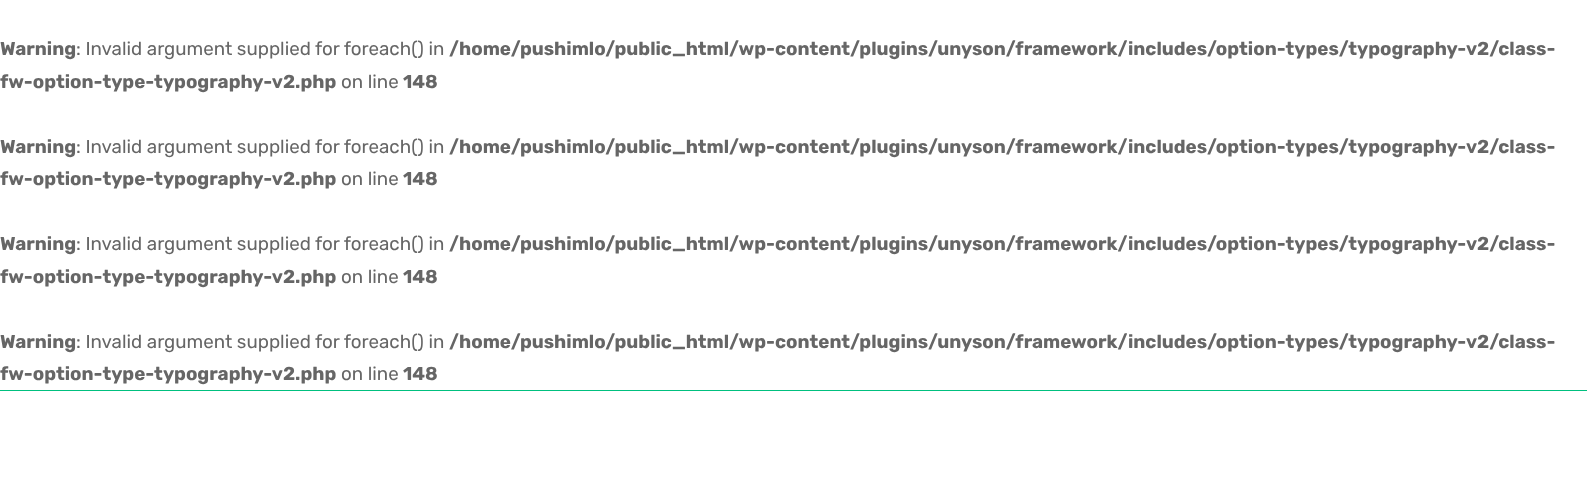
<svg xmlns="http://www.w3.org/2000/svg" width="1587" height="491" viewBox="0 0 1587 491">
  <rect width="100%" height="100%" fill="rgb(255,255,255)"/>
  <text x="0" y="55" font-family="Rubik" font-size="18.75" font-weight="bold" fill="rgb(102,102,102)">Warning</text>
  <text x="76" y="55" font-family="Rubik" font-size="18.75" fill="rgb(102,102,102)">: Invalid argument supplied for foreach() in</text>
  <g font-family="Rubik" font-size="18.75" font-weight="bold" fill="rgb(102,102,102)">
    <text x="449" y="55">/home/pushimlo/public_html/wp-content/plugins/unyson/framework/includes/option-types/typography-v2/class-</text>
    <text x="0" y="88">fw-option-type-typography-v2.php</text>
  </g>
  <text x="341" y="88" font-family="Rubik" font-size="18.75" fill="rgb(102,102,102)">on line</text>
  <g font-family="Rubik" font-size="18.75" font-weight="bold" fill="rgb(102,102,102)">
    <text x="403" y="88">148</text>
    <text x="0" y="153">Warning</text>
  </g>
  <text x="76" y="153" font-family="Rubik" font-size="18.75" fill="rgb(102,102,102)">: Invalid argument supplied for foreach() in</text>
  <g font-family="Rubik" font-size="18.75" font-weight="bold" fill="rgb(102,102,102)">
    <text x="449" y="153">/home/pushimlo/public_html/wp-content/plugins/unyson/framework/includes/option-types/typography-v2/class-</text>
    <text x="0" y="185">fw-option-type-typography-v2.php</text>
  </g>
  <text x="341" y="185" font-family="Rubik" font-size="18.75" fill="rgb(102,102,102)">on line</text>
  <g font-family="Rubik" font-size="18.75" font-weight="bold" fill="rgb(102,102,102)">
    <text x="403" y="185">148</text>
    <text x="0" y="250">Warning</text>
  </g>
  <text x="76" y="250" font-family="Rubik" font-size="18.75" fill="rgb(102,102,102)">: Invalid argument supplied for foreach() in</text>
  <g font-family="Rubik" font-size="18.75" font-weight="bold" fill="rgb(102,102,102)">
    <text x="449" y="250">/home/pushimlo/public_html/wp-content/plugins/unyson/framework/includes/option-types/typography-v2/class-</text>
    <text x="0" y="283">fw-option-type-typography-v2.php</text>
  </g>
  <text x="341" y="283" font-family="Rubik" font-size="18.75" fill="rgb(102,102,102)">on line</text>
  <g font-family="Rubik" font-size="18.75" font-weight="bold" fill="rgb(102,102,102)">
    <text x="403" y="283">148</text>
    <text x="0" y="348">Warning</text>
  </g>
  <text x="76" y="348" font-family="Rubik" font-size="18.75" fill="rgb(102,102,102)">: Invalid argument supplied for foreach() in</text>
  <g font-family="Rubik" font-size="18.75" font-weight="bold" fill="rgb(102,102,102)">
    <text x="449" y="348">/home/pushimlo/public_html/wp-content/plugins/unyson/framework/includes/option-types/typography-v2/class-</text>
    <text x="0" y="380">fw-option-type-typography-v2.php</text>
  </g>
  <text x="341" y="380" font-family="Rubik" font-size="18.75" fill="rgb(102,102,102)">on line</text>
  <text x="403" y="380" font-family="Rubik" font-size="18.75" font-weight="bold" fill="rgb(102,102,102)">148</text>
  <rect x="0" y="390" width="1587" height="1" fill="rgb(0,192,127)"/>
</svg>
